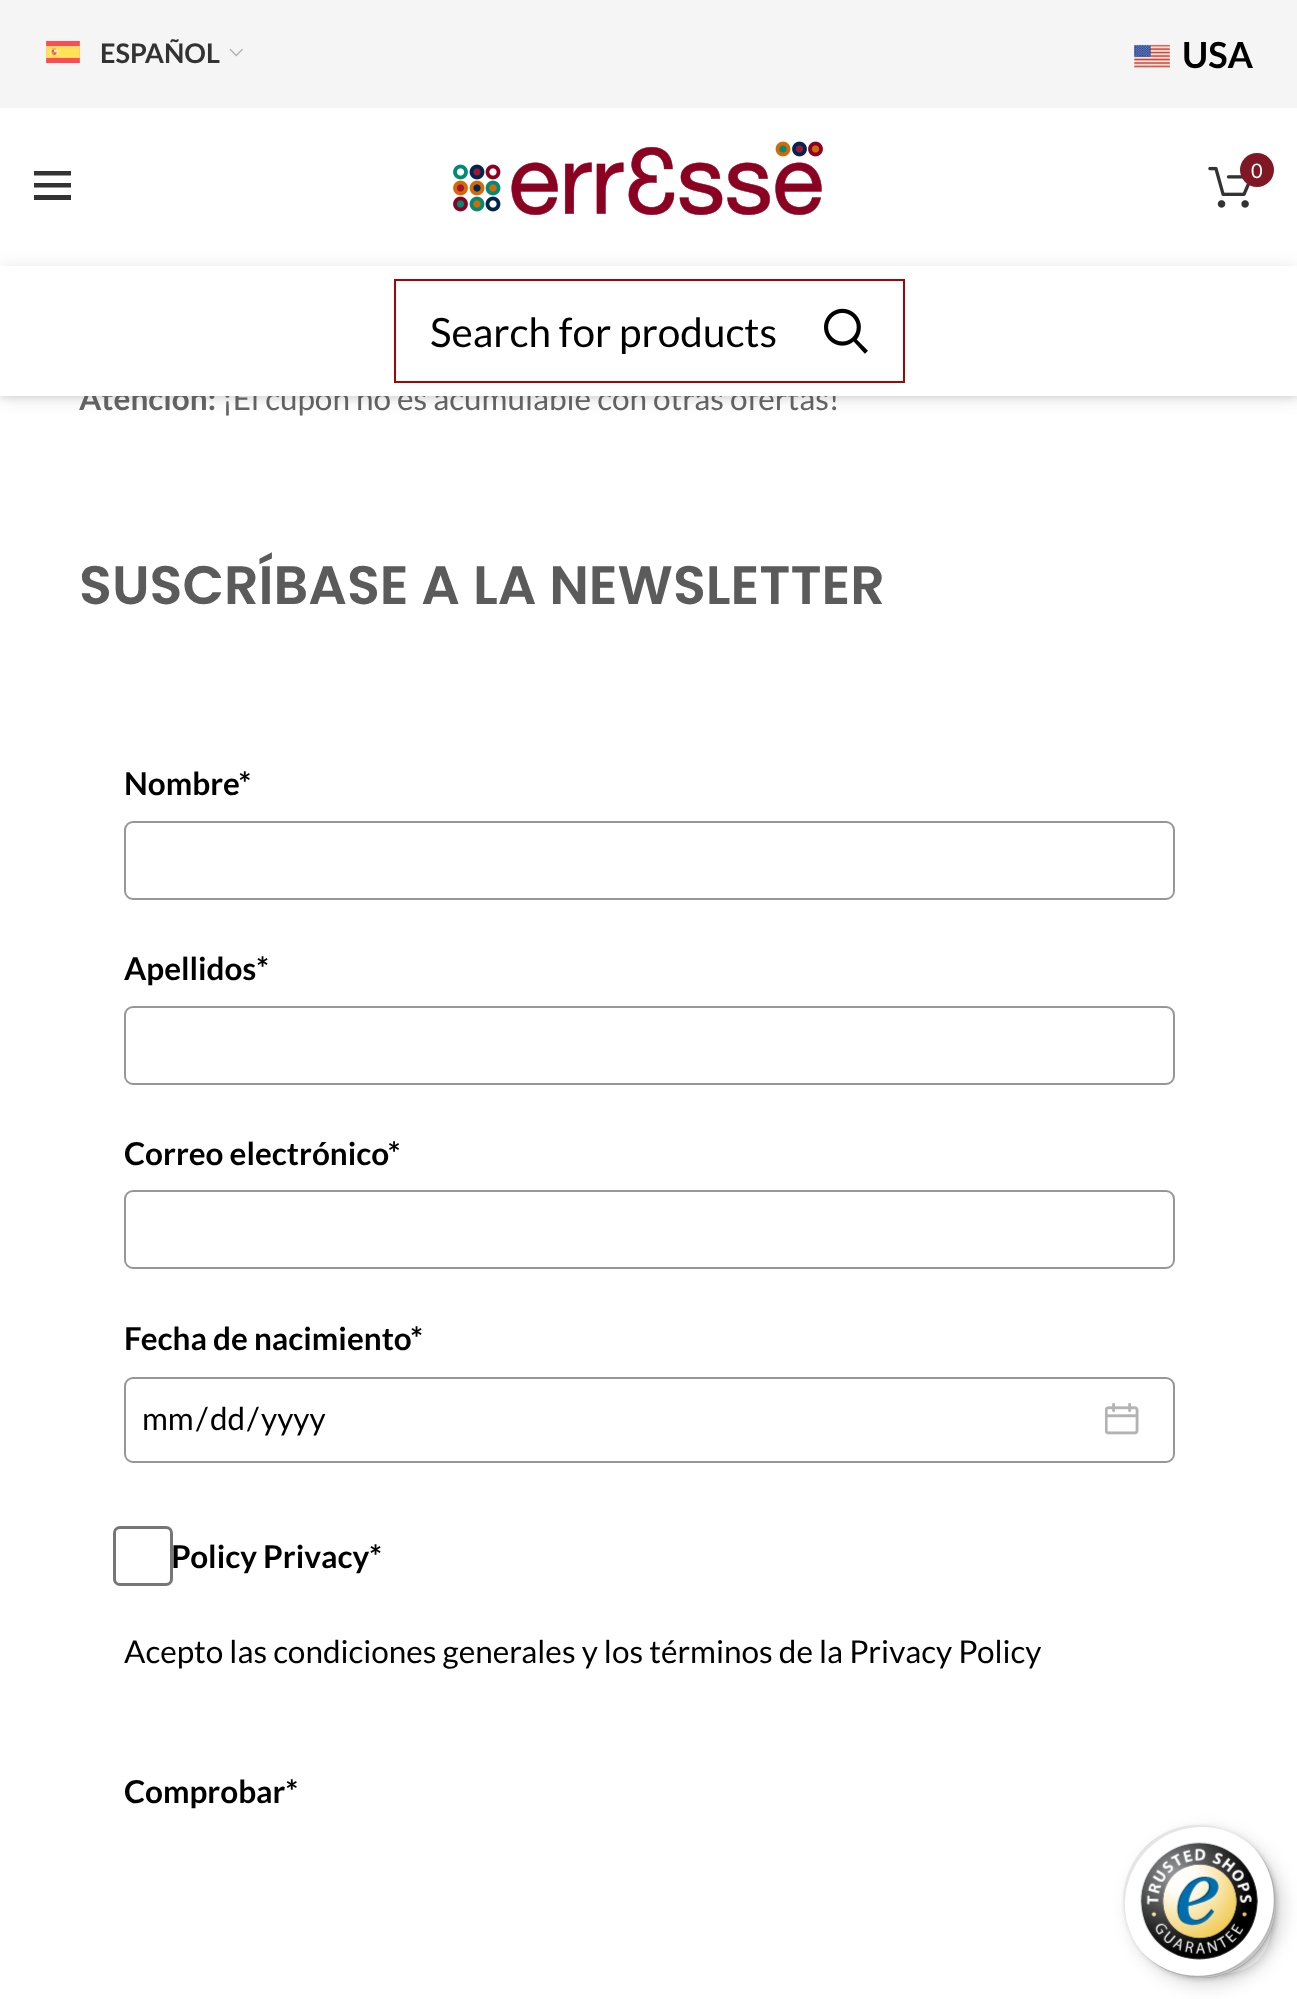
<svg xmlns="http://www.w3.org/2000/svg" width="1297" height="1999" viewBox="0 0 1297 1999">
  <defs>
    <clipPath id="clip1"><path d="M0 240H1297V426H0ZM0 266H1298V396H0Z" clip-rule="evenodd"/></clipPath>
    <clipPath id="clip2"><path d="M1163 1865H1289V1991H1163ZM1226 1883C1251 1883 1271 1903 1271 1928C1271 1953 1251 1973 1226 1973C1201 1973 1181 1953 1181 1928C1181 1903 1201 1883 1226 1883Z" clip-rule="evenodd"/></clipPath>
  </defs>
  <rect width="100%" height="100%" fill="rgb(255,255,255)"/>
  <rect x="0" y="2" width="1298" height="396" fill="rgba(0,0,0,0.1)" filter="blur(3.5px)"/>
  <text x="79" y="410" font-family="Lato" font-size="31.5" font-weight="bold" fill="rgb(101,101,101)">Atención:</text>
  <text x="222" y="410" font-family="Lato" font-size="31.5" fill="rgb(101,101,101)">¡El cupón no es acumulable con otras ofertas!</text>
  <rect x="0" y="108" width="1297" height="288" fill="rgb(255,255,255)"/>
  <rect x="0" y="0" width="1297" height="108" fill="rgb(245,245,245)"/>
  <image x="46" y="41" width="34" height="22" href="pic1.png"/>
  <text x="100" y="63" font-family="Lato" font-size="27" font-weight="bold" fill="rgb(51,51,51)">ESPAÑOL</text>
  <image x="229" y="48" width="14" height="9" href="pic2.png"/>
  <image x="1134" y="44" width="36" height="24" href="pic3.png"/>
  <text x="1182" y="68" font-family="Lato" font-size="36" font-weight="bold" fill="rgb(0,0,0)">USA</text>
  <path d="M34 171H71V175.5H34ZM34 183H71V187.5H34ZM34 195H71V200H34Z" fill="rgb(51,51,51)"/>
  <image x="453" y="141" width="370" height="74" href="pic4.png"/>
  <image x="1208" y="166" width="42" height="42" href="pic5.png"/>
  <circle cx="1257" cy="170" r="17" fill="rgb(127,23,37)"/>
  <text x="1251" y="178" font-family="Lato" font-size="20" fill="rgb(255,255,255)">0</text>
  <g clip-path="url(#clip1)">
    <rect x="0" y="268" width="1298" height="130" fill="rgba(0,0,0,0.1)" filter="blur(9px)"/>
  </g>
  <rect x="395" y="280" width="509" height="102" fill="none" stroke="rgb(162,5,5)" stroke-width="2"/>
  <text x="430" y="347" font-family="Lato" font-size="40.5" fill="rgb(0,0,0)">Search for products</text>
  <image x="824" y="308" width="44" height="46" href="pic6.png"/>
  <text x="79" y="604" font-family="Poppins" font-size="54" font-weight="600" fill="rgb(91,91,91)">SUSCRÍBASE A LA NEWSLETTER</text>
  <text x="124" y="795" font-family="Lato" font-size="31.5" font-weight="bold" fill="rgb(0,0,0)">Nombre*</text>
  <rect x="125" y="822" width="1049" height="77" rx="8" fill="none" stroke="rgb(151,151,151)" stroke-width="2"/>
  <text x="124" y="980" font-family="Lato" font-size="31.5" font-weight="bold" fill="rgb(0,0,0)">Apellidos*</text>
  <rect x="125" y="1007" width="1049" height="77" rx="8" fill="none" stroke="rgb(151,151,151)" stroke-width="2"/>
  <text x="124" y="1165" font-family="Lato" font-size="31.5" font-weight="bold" fill="rgb(0,0,0)">Correo electrónico*</text>
  <rect x="125" y="1191" width="1049" height="77" rx="8" fill="none" stroke="rgb(151,151,151)" stroke-width="2"/>
  <text x="124" y="1350" font-family="Lato" font-size="31.5" font-weight="bold" fill="rgb(0,0,0)">Fecha de nacimiento*</text>
  <image x="1105" y="1403" width="34" height="32" href="pic7.png"/>
  <rect x="125" y="1378" width="1049" height="84" rx="8" fill="none" stroke="rgb(151,151,151)" stroke-width="2"/>
  <g font-family="Lato" font-size="31.5" fill="rgb(0,0,0)">
    <text x="142" y="1430">mm</text>
    <text x="196" y="1430">/</text>
    <text x="210" y="1430">dd</text>
    <text x="247" y="1430">/</text>
    <text x="261" y="1430">yyyy</text>
  </g>
  <rect x="114.5" y="1527.5" width="57" height="57" rx="5.5" fill="none" stroke="rgb(118,118,118)" stroke-width="3"/>
  <text x="171" y="1568" font-family="Lato" font-size="31.5" font-weight="bold" fill="rgb(0,0,0)">Policy Privacy*</text>
  <text x="124" y="1663" font-family="Lato" font-size="31.5" fill="rgb(0,0,0)">Acepto las condiciones generales y los términos de la Privacy Policy</text>
  <text x="124" y="1803" font-family="Lato" font-size="31.5" font-weight="bold" fill="rgb(0,0,0)">Comprobar*</text>
  <g clip-path="url(#clip2)">
    <rect x="1181" y="1883" width="90" height="90" rx="45" fill="rgba(0,0,0,0.17)" filter="blur(5.5px)"/>
  </g>
  <circle cx="1226" cy="1928" r="45" fill="rgba(255,255,255,0.9)"/>
  <rect x="1130" y="1832" width="153" height="153" rx="76.5" fill="rgba(0,0,0,0.15)" filter="blur(9px)"/>
  <rect x="1125" y="1827" width="153" height="153" rx="76.5" fill="rgba(0,0,0,0.15)" filter="blur(2px)"/>
  <circle cx="1199.5" cy="1901.5" r="76.5" fill="rgb(255,255,255)"/>
  <path d="M1202 1827C1221 1827 1238 1834 1252 1846C1222 1818 1175 1818 1145 1847C1116 1877 1116 1924 1144 1954C1101 1905 1136 1827 1202 1827Z" fill="rgba(0,0,0,0.1)"/>
  <path d="M1148 1958C1178 1985 1225 1985 1254 1956C1283 1927 1283 1880 1256 1850C1281 1880 1280 1925 1251 1953C1223 1982 1178 1983 1148 1958Z" fill="rgba(0,0,0,0.2)"/>
  <path d="M1142 1952C1171 1985 1222 1987 1254 1956C1285 1924 1283 1873 1250 1844C1281 1874 1282 1923 1252 1954C1221 1984 1172 1983 1142 1952Z" fill="rgba(50,50,50,0.2)"/>
  <path d="M1139 1949C1167 1984 1221 1988 1254 1956C1286 1923 1282 1869 1247 1841C1282 1870 1285 1922 1252 1954C1220 1987 1168 1984 1139 1949Z" fill="rgba(255,255,255,0.3)"/>
  <image x="1140" y="1842" width="118" height="118" href="pic8.png"/>
</svg>
